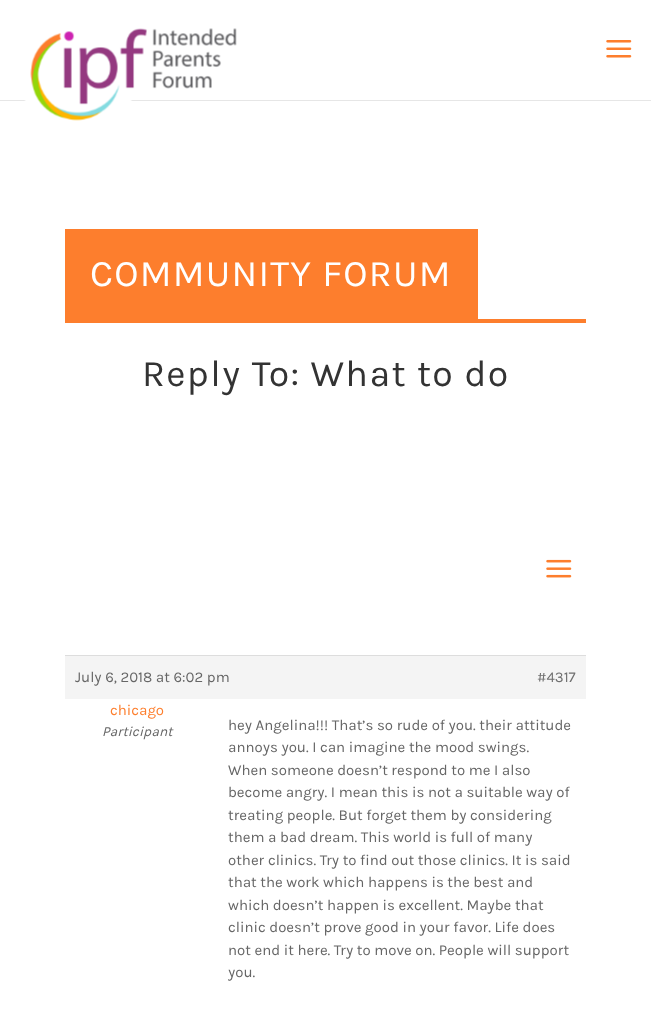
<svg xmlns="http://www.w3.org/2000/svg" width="651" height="1030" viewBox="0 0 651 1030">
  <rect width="100%" height="100%" fill="rgb(255,255,255)"/>
  <rect x="0" y="100" width="651" height="1" fill="rgb(230,230,230)"/>
  <image x="24" y="28" width="213" height="93" href="pic1.png"/>
  <image x="606" y="40" width="26" height="18" href="pic2.png"/>
  <rect x="65" y="319" width="521" height="4" fill="rgb(253,126,45)"/>
  <rect x="65" y="229" width="413" height="90" fill="rgb(253,126,45)"/>
  <text x="90" y="286" font-family="Karla" font-size="37.5" letter-spacing="1.25" fill="rgb(255,255,255)">COMMUNITY FORUM</text>
  <text x="142" y="386" font-family="Karla" font-size="37.5" letter-spacing="1.25" fill="rgb(51,51,51)">Reply To: What to do</text>
  <image x="546" y="559" width="26" height="19" href="pic3.png"/>
  <rect x="65" y="656" width="521" height="43" fill="rgb(244,244,244)"/>
  <rect x="65" y="655" width="521" height="1" fill="rgb(221,221,221)"/>
  <text x="75" y="682" font-family="Karla" font-size="15" fill="rgb(102,102,102)">July 6, 2018 at 6:02 pm</text>
  <text x="537" y="682" font-family="Karla" font-size="15" fill="rgb(112,112,112)">#4317</text>
  <text x="110" y="715" font-family="Karla" font-size="15" fill="rgb(253,126,45)">chicago</text>
  <text x="102" y="736" font-family="Karla" font-size="13.75" font-style="italic" fill="rgb(102,102,102)">Participant</text>
  <g font-family="Karla" font-size="15" fill="rgb(102,102,102)">
    <text>
      <tspan x="228" y="730">hey Angelina!!! That’s so rude of you. their attitude</tspan>
      <tspan x="228" y="752">annoys you. I can imagine the mood swings.</tspan>
      <tspan x="228" y="775">When someone doesn’t respond to me I also</tspan>
      <tspan x="228" y="797">become angry. I mean this is not a suitable way of</tspan>
      <tspan x="228" y="820">treating people. But forget them by considering</tspan>
      <tspan x="228" y="842">them a bad dream. This world is full of many</tspan>
      <tspan x="228" y="865">other clinics. Try to find out those clinics. It is said</tspan>
      <tspan x="228" y="887">that the work which happens is the best and</tspan>
      <tspan x="228" y="910">which doesn’t happen is excellent. Maybe that</tspan>
      <tspan x="228" y="932">clinic doesn’t prove good in your favor. Life does</tspan>
      <tspan x="228" y="955">not end it here. Try to move on. People will support</tspan>
      <tspan x="228" y="977">you.</tspan>
    </text>
  </g>
</svg>
